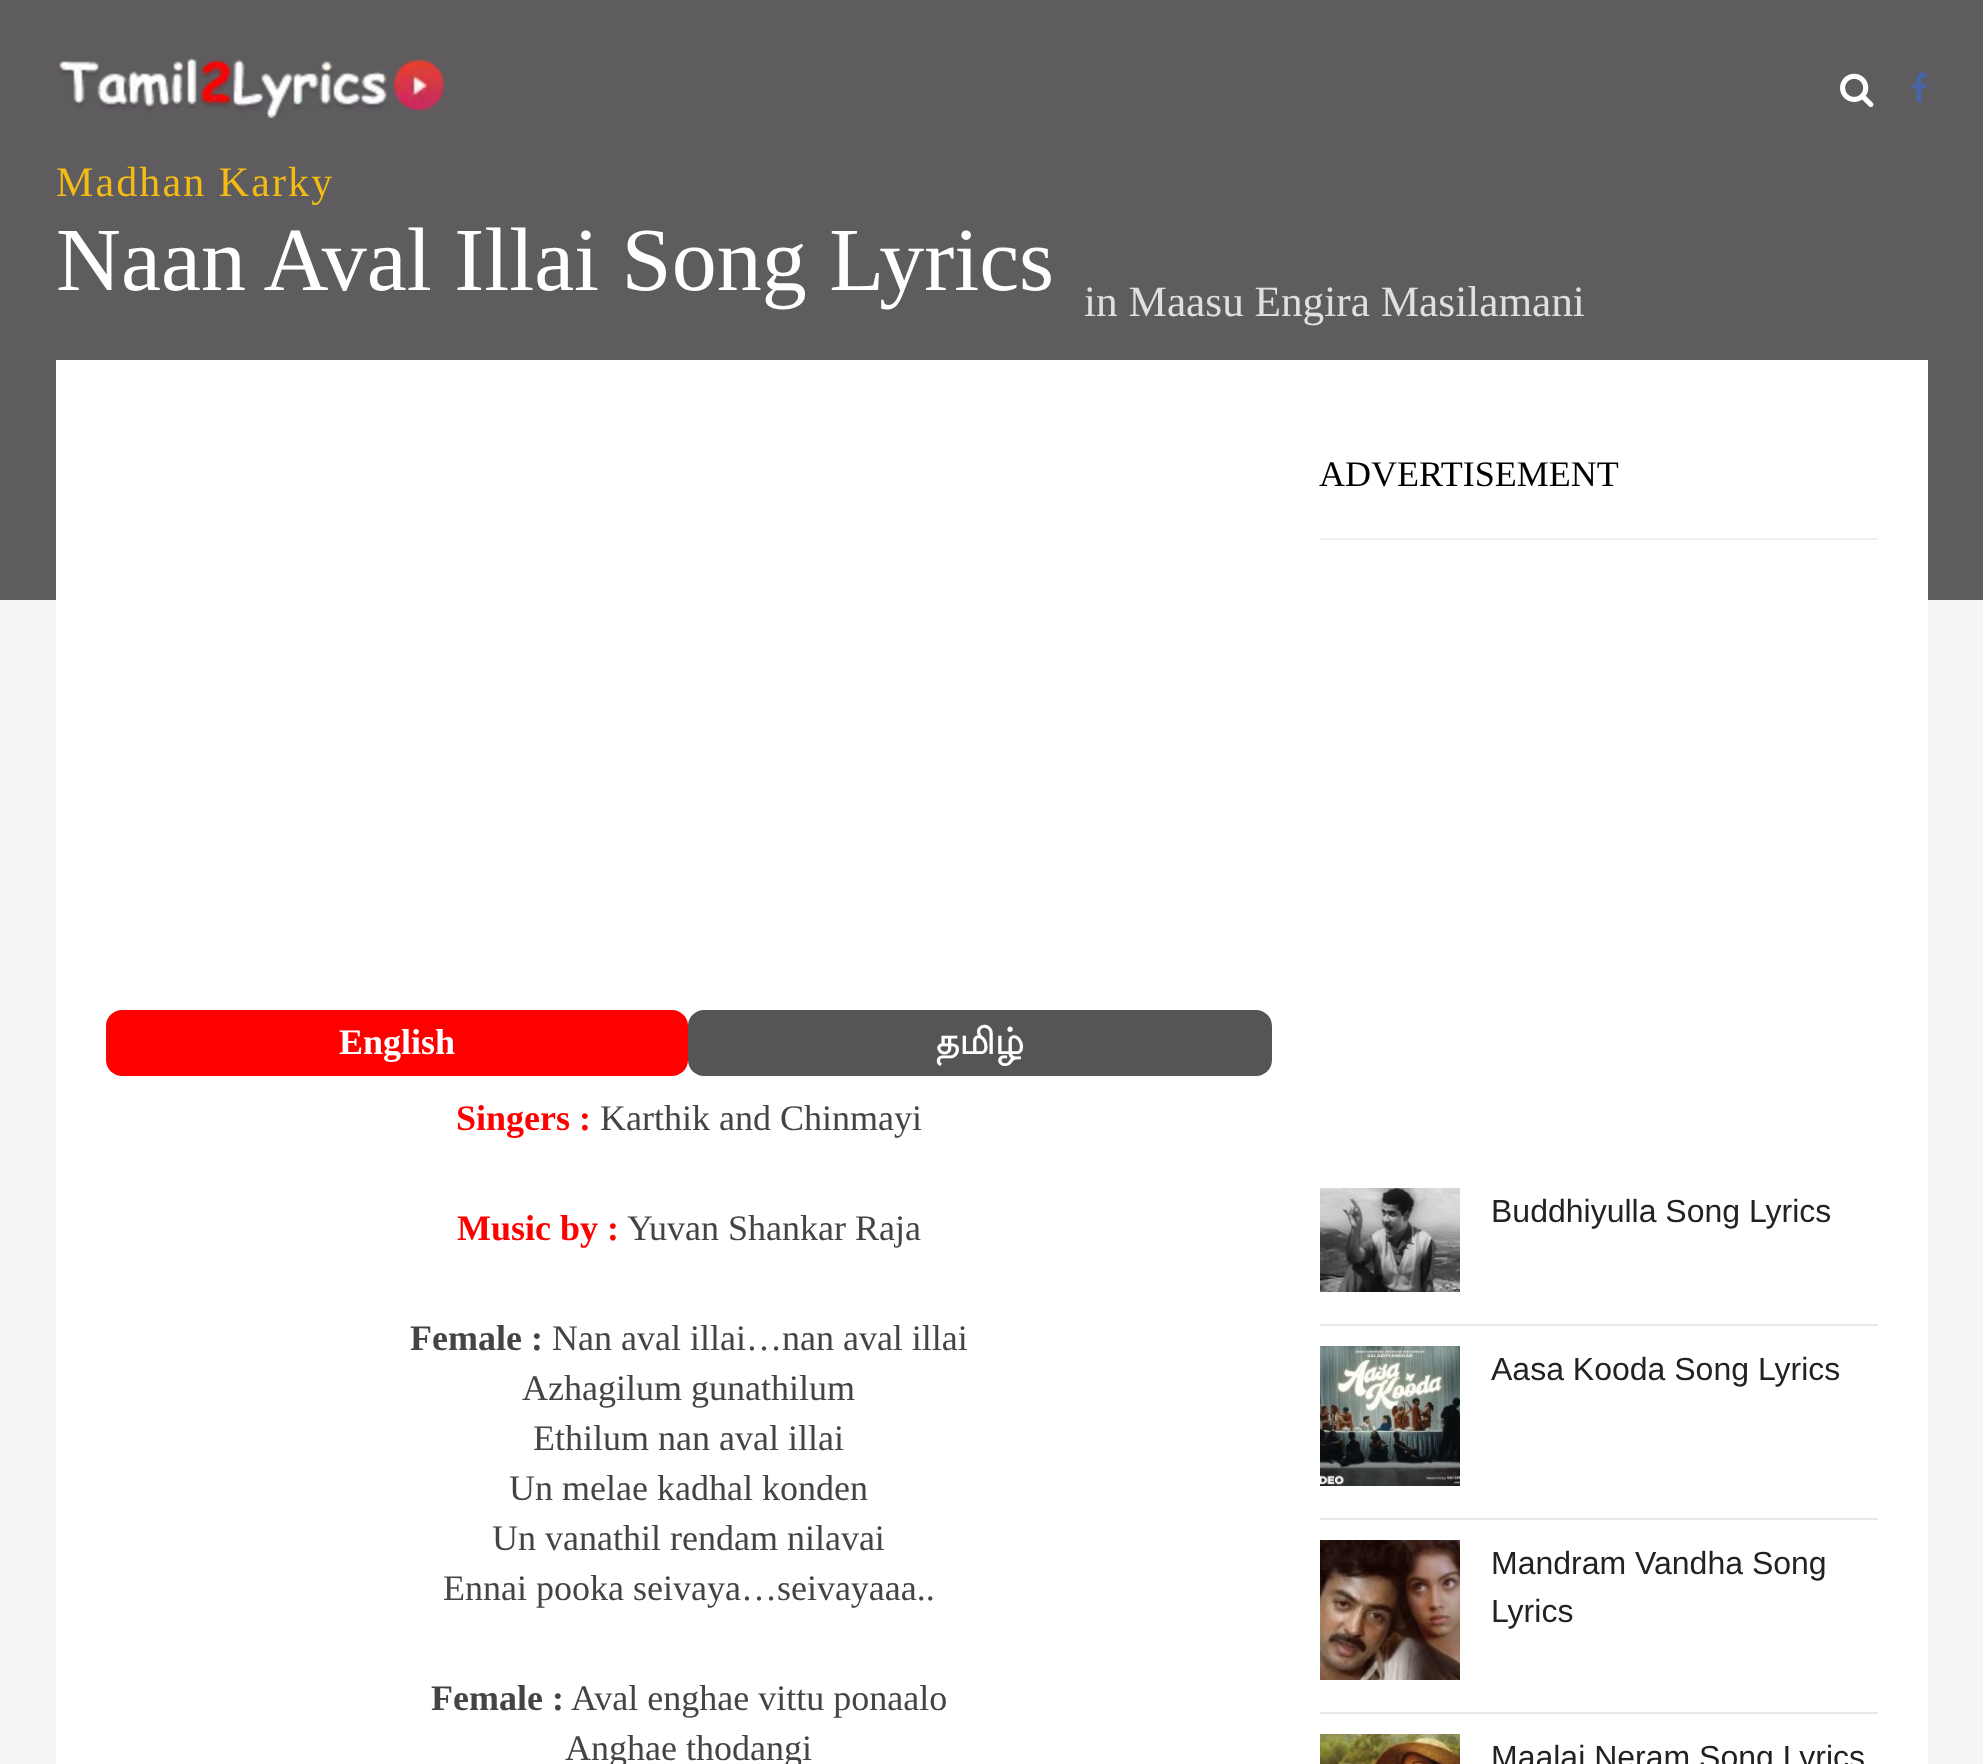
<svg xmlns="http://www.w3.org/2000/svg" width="1983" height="1764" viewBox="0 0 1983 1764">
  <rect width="100%" height="100%" fill="rgb(245,245,245)"/>
  <rect x="0" y="0" width="1983" height="600" fill="rgb(95,92,96)"/>
  <image x="59" y="57" width="386" height="61" href="pic1.png"/>
  <image x="1840" y="73" width="34" height="35" href="pic2.png"/>
  <image x="1911" y="72" width="17" height="31" href="pic3.png"/>
  <text x="56" y="196" font-family="Liberation Serif" font-size="42" letter-spacing="2.1" fill="rgb(243,187,20)">Madhan Karky</text>
  <text x="56" y="290" font-family="Liberation Serif" font-size="90" fill="rgb(255,255,255)">Naan Aval Illai Song Lyrics</text>
  <text x="1084" y="316" font-family="Liberation Serif" font-size="43.25" fill="rgb(224,224,224)">in Maasu Engira Masilamani</text>
  <rect x="56" y="360" width="1872" height="1404" fill="rgb(255,255,255)"/>
  <rect x="106" y="1010" width="582" height="66" rx="16" fill="rgb(255,0,0)"/>
  <text x="339" y="1054" font-family="Liberation Serif" font-size="36" font-weight="bold" fill="rgb(255,255,255)">English</text>
  <rect x="688" y="1010" width="584" height="66" rx="16" fill="rgb(85,85,85)"/>
  <text x="936" y="1054" font-family="Lohit Tamil" font-size="36" font-weight="bold" fill="rgb(255,255,255)">தமிழ்</text>
  <text x="456" y="1130" font-family="Liberation Serif" font-size="36" font-weight="bold" fill="rgb(255,0,0)">Singers :</text>
  <text x="600" y="1130" font-family="Liberation Serif" font-size="36" fill="rgb(68,68,68)">Karthik and Chinmayi</text>
  <text x="457" y="1240" font-family="Liberation Serif" font-size="36" font-weight="bold" fill="rgb(255,0,0)">Music by :</text>
  <text x="627" y="1240" font-family="Liberation Serif" font-size="36" fill="rgb(68,68,68)">Yuvan Shankar Raja</text>
  <text x="410" y="1350" font-family="Liberation Serif" font-size="36" font-weight="bold" fill="rgb(68,68,68)">Female :</text>
  <g font-family="Liberation Serif" font-size="36" fill="rgb(68,68,68)">
    <text x="552" y="1350">Nan aval illai…nan aval illai</text>
    <text x="522" y="1400">Azhagilum gunathilum</text>
    <text x="533" y="1450">Ethilum nan aval illai</text>
    <text x="509" y="1500">Un melae kadhal konden</text>
    <text x="492" y="1550">Un vanathil rendam nilavai</text>
    <text x="443" y="1600">Ennai pooka seivaya…seivayaaa..</text>
  </g>
  <text x="431" y="1710" font-family="Liberation Serif" font-size="36" font-weight="bold" fill="rgb(68,68,68)">Female :</text>
  <g font-family="Liberation Serif" font-size="36" fill="rgb(68,68,68)">
    <text x="571" y="1710">Aval enghae vittu ponaalo</text>
    <text x="565" y="1760">Anghae thodangi</text>
  </g>
  <rect x="1320" y="538" width="558" height="2" fill="rgb(240,240,240)"/>
  <text x="1319" y="486" font-family="Liberation Serif" font-size="36" fill="rgb(0,0,0)">ADVERTISEMENT</text>
  <rect x="1320" y="1324" width="558" height="2" fill="rgb(232,232,232)"/>
  <image x="1320" y="1188" width="140" height="104" href="pic4.png"/>
  <text x="1491" y="1222" font-family="Liberation Sans" font-size="32" fill="rgb(34,34,34)">Buddhiyulla Song Lyrics</text>
  <rect x="1320" y="1518" width="558" height="2" fill="rgb(232,232,232)"/>
  <image x="1320" y="1346" width="140" height="140" href="pic5.png"/>
  <text x="1491" y="1380" font-family="Liberation Sans" font-size="32" fill="rgb(34,34,34)">Aasa Kooda Song Lyrics</text>
  <rect x="1320" y="1712" width="558" height="2" fill="rgb(232,232,232)"/>
  <image x="1320" y="1540" width="140" height="140" href="pic6.png"/>
  <g font-family="Liberation Sans" font-size="32" fill="rgb(34,34,34)">
    <text>
      <tspan x="1491" y="1574">Mandram Vandha Song</tspan>
      <tspan x="1491" y="1622">Lyrics</tspan>
    </text>
  </g>
  <image x="1320" y="1734" width="140" height="30" href="pic7.png"/>
  <text x="1491" y="1768" font-family="Liberation Sans" font-size="32" fill="rgb(34,34,34)">Maalai Neram Song Lyrics</text>
</svg>
